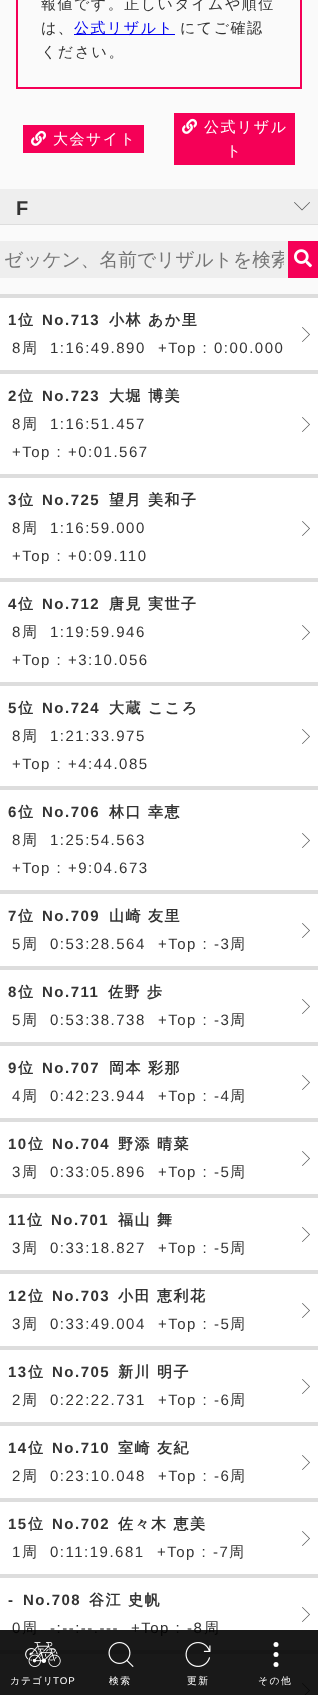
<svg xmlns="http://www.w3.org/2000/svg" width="318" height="1695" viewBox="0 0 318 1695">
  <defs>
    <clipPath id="clip1"><rect x="4" y="247" width="280" height="26"/></clipPath>
  </defs>
  <rect width="100%" height="100%" fill="rgb(250,250,250)"/>
  <rect x="17" y="-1" width="284" height="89" fill="none" stroke="rgb(245,0,87)" stroke-width="2"/>
  <g font-family="WenQuanYi Zen Hei" font-size="15" font-weight="500" letter-spacing="1.5" fill="rgb(51,51,51)">
    <text>
      <tspan x="41" y="9">報値です。正しいタイムや順位</tspan>
      <tspan x="41" y="33">は、</tspan>
    </text>
  </g>
  <rect x="74" y="34" width="101" height="1" fill="rgb(0,0,238)"/>
  <text x="74" y="33" font-family="WenQuanYi Zen Hei" font-size="15" font-weight="500" letter-spacing="1.5" fill="rgb(0,0,238)">公式リザルト</text>
  <g font-family="WenQuanYi Zen Hei" font-size="15" font-weight="500" letter-spacing="1.5" fill="rgb(51,51,51)">
    <text x="180" y="33">にてご確認</text>
    <text x="41" y="57">ください。</text>
  </g>
  <rect x="23" y="125" width="121" height="28" fill="rgb(245,0,87)"/>
  <image x="31" y="130" width="15" height="16" href="pic1.png"/>
  <text x="53" y="144" font-family="WenQuanYi Zen Hei" font-size="15" font-weight="500" letter-spacing="1.5" fill="rgb(255,255,255)">大会サイト</text>
  <rect x="174" y="113" width="121" height="52" fill="rgb(245,0,87)"/>
  <image x="182" y="118" width="15" height="16" href="pic1.png"/>
  <g font-family="WenQuanYi Zen Hei" font-size="15" font-weight="500" letter-spacing="1.5" fill="rgb(255,255,255)">
    <text x="204" y="132">公式リザル</text>
    <text x="226" y="156">ト</text>
  </g>
  <rect x="0" y="224" width="318" height="1" fill="rgb(221,221,221)"/>
  <rect x="0" y="189" width="318" height="35" fill="rgb(238,238,238)"/>
  <text x="16" y="215" font-family="Liberation Sans" font-size="20" font-weight="bold" letter-spacing="1.5" fill="rgb(51,51,51)">F</text>
  <image x="294" y="202" width="16" height="9" href="pic2.png"/>
  <rect x="0" y="241" width="288" height="37" fill="rgb(238,238,238)"/>
  <g clip-path="url(#clip1)">
    <text x="4" y="266" font-family="WenQuanYi Zen Hei" font-size="18.75" font-weight="500" fill="rgb(117,117,117)">ゼッケン、名前でリザルトを検索</text>
  </g>
  <rect x="288" y="241" width="30" height="37" fill="rgb(245,0,87)"/>
  <image x="294" y="249" width="18" height="19" href="pic3.png"/>
  <rect x="0" y="294" width="318" height="4" fill="rgb(221,221,221)"/>
  <rect x="0" y="298" width="318" height="72" fill="rgb(255,255,255)"/>
  <rect x="0" y="370" width="318" height="4" fill="rgb(221,221,221)"/>
  <text x="8" y="325" font-family="Liberation Sans" font-size="15" font-weight="bold" letter-spacing="1.5" fill="rgb(51,51,51)">1</text>
  <text x="18" y="325" font-family="WenQuanYi Zen Hei" font-size="15" font-weight="bold" letter-spacing="1.5" fill="rgb(51,51,51)">位</text>
  <text x="42" y="325" font-family="Liberation Sans" font-size="15" font-weight="bold" letter-spacing="1.5" fill="rgb(51,51,51)">No.713</text>
  <text x="109" y="325" font-family="WenQuanYi Zen Hei" font-size="15" font-weight="bold" letter-spacing="1.5" fill="rgb(51,51,51)">小林 あか里</text>
  <text x="12" y="353" font-family="Liberation Sans" font-size="15" letter-spacing="1.5" fill="rgb(51,51,51)">8</text>
  <text x="22" y="353" font-family="WenQuanYi Zen Hei" font-size="15" font-weight="500" letter-spacing="1.5" fill="rgb(51,51,51)">周</text>
  <g font-family="Liberation Sans" font-size="15" letter-spacing="1.5" fill="rgb(51,51,51)">
    <text x="50" y="353">1:16:49.890</text>
    <text x="158" y="353">+Top : 0:00.000</text>
  </g>
  <image x="302" y="327" width="8" height="15" href="pic4.png"/>
  <rect x="0" y="374" width="318" height="100" fill="rgb(255,255,255)"/>
  <rect x="0" y="474" width="318" height="4" fill="rgb(221,221,221)"/>
  <text x="8" y="401" font-family="Liberation Sans" font-size="15" font-weight="bold" letter-spacing="1.5" fill="rgb(51,51,51)">2</text>
  <text x="18" y="401" font-family="WenQuanYi Zen Hei" font-size="15" font-weight="bold" letter-spacing="1.5" fill="rgb(51,51,51)">位</text>
  <text x="42" y="401" font-family="Liberation Sans" font-size="15" font-weight="bold" letter-spacing="1.5" fill="rgb(51,51,51)">No.723</text>
  <text x="109" y="401" font-family="WenQuanYi Zen Hei" font-size="15" font-weight="bold" letter-spacing="1.5" fill="rgb(51,51,51)">大堀 博美</text>
  <text x="12" y="429" font-family="Liberation Sans" font-size="15" letter-spacing="1.5" fill="rgb(51,51,51)">8</text>
  <text x="22" y="429" font-family="WenQuanYi Zen Hei" font-size="15" font-weight="500" letter-spacing="1.5" fill="rgb(51,51,51)">周</text>
  <g font-family="Liberation Sans" font-size="15" letter-spacing="1.5" fill="rgb(51,51,51)">
    <text x="50" y="429">1:16:51.457</text>
    <text x="12" y="457">+Top : +0:01.567</text>
  </g>
  <image x="302" y="417" width="8" height="15" href="pic4.png"/>
  <rect x="0" y="478" width="318" height="100" fill="rgb(255,255,255)"/>
  <rect x="0" y="578" width="318" height="4" fill="rgb(221,221,221)"/>
  <text x="8" y="505" font-family="Liberation Sans" font-size="15" font-weight="bold" letter-spacing="1.5" fill="rgb(51,51,51)">3</text>
  <text x="18" y="505" font-family="WenQuanYi Zen Hei" font-size="15" font-weight="bold" letter-spacing="1.5" fill="rgb(51,51,51)">位</text>
  <text x="42" y="505" font-family="Liberation Sans" font-size="15" font-weight="bold" letter-spacing="1.5" fill="rgb(51,51,51)">No.725</text>
  <text x="109" y="505" font-family="WenQuanYi Zen Hei" font-size="15" font-weight="bold" letter-spacing="1.5" fill="rgb(51,51,51)">望月 美和子</text>
  <text x="12" y="533" font-family="Liberation Sans" font-size="15" letter-spacing="1.5" fill="rgb(51,51,51)">8</text>
  <text x="22" y="533" font-family="WenQuanYi Zen Hei" font-size="15" font-weight="500" letter-spacing="1.5" fill="rgb(51,51,51)">周</text>
  <g font-family="Liberation Sans" font-size="15" letter-spacing="1.5" fill="rgb(51,51,51)">
    <text x="50" y="533">1:16:59.000</text>
    <text x="12" y="561">+Top : +0:09.110</text>
  </g>
  <image x="302" y="521" width="8" height="15" href="pic4.png"/>
  <rect x="0" y="582" width="318" height="100" fill="rgb(255,255,255)"/>
  <rect x="0" y="682" width="318" height="4" fill="rgb(221,221,221)"/>
  <text x="8" y="609" font-family="Liberation Sans" font-size="15" font-weight="bold" letter-spacing="1.5" fill="rgb(51,51,51)">4</text>
  <text x="18" y="609" font-family="WenQuanYi Zen Hei" font-size="15" font-weight="bold" letter-spacing="1.5" fill="rgb(51,51,51)">位</text>
  <text x="42" y="609" font-family="Liberation Sans" font-size="15" font-weight="bold" letter-spacing="1.5" fill="rgb(51,51,51)">No.712</text>
  <text x="109" y="609" font-family="WenQuanYi Zen Hei" font-size="15" font-weight="bold" letter-spacing="1.5" fill="rgb(51,51,51)">唐見 実世子</text>
  <text x="12" y="637" font-family="Liberation Sans" font-size="15" letter-spacing="1.5" fill="rgb(51,51,51)">8</text>
  <text x="22" y="637" font-family="WenQuanYi Zen Hei" font-size="15" font-weight="500" letter-spacing="1.5" fill="rgb(51,51,51)">周</text>
  <g font-family="Liberation Sans" font-size="15" letter-spacing="1.5" fill="rgb(51,51,51)">
    <text x="50" y="637">1:19:59.946</text>
    <text x="12" y="665">+Top : +3:10.056</text>
  </g>
  <image x="302" y="625" width="8" height="15" href="pic4.png"/>
  <rect x="0" y="686" width="318" height="100" fill="rgb(255,255,255)"/>
  <rect x="0" y="786" width="318" height="4" fill="rgb(221,221,221)"/>
  <text x="8" y="713" font-family="Liberation Sans" font-size="15" font-weight="bold" letter-spacing="1.5" fill="rgb(51,51,51)">5</text>
  <text x="18" y="713" font-family="WenQuanYi Zen Hei" font-size="15" font-weight="bold" letter-spacing="1.5" fill="rgb(51,51,51)">位</text>
  <text x="42" y="713" font-family="Liberation Sans" font-size="15" font-weight="bold" letter-spacing="1.5" fill="rgb(51,51,51)">No.724</text>
  <text x="109" y="713" font-family="WenQuanYi Zen Hei" font-size="15" font-weight="bold" letter-spacing="1.5" fill="rgb(51,51,51)">大蔵 こころ</text>
  <text x="12" y="741" font-family="Liberation Sans" font-size="15" letter-spacing="1.5" fill="rgb(51,51,51)">8</text>
  <text x="22" y="741" font-family="WenQuanYi Zen Hei" font-size="15" font-weight="500" letter-spacing="1.5" fill="rgb(51,51,51)">周</text>
  <g font-family="Liberation Sans" font-size="15" letter-spacing="1.5" fill="rgb(51,51,51)">
    <text x="50" y="741">1:21:33.975</text>
    <text x="12" y="769">+Top : +4:44.085</text>
  </g>
  <image x="302" y="729" width="8" height="15" href="pic4.png"/>
  <rect x="0" y="790" width="318" height="100" fill="rgb(255,255,255)"/>
  <rect x="0" y="890" width="318" height="4" fill="rgb(221,221,221)"/>
  <text x="8" y="817" font-family="Liberation Sans" font-size="15" font-weight="bold" letter-spacing="1.5" fill="rgb(51,51,51)">6</text>
  <text x="18" y="817" font-family="WenQuanYi Zen Hei" font-size="15" font-weight="bold" letter-spacing="1.5" fill="rgb(51,51,51)">位</text>
  <text x="42" y="817" font-family="Liberation Sans" font-size="15" font-weight="bold" letter-spacing="1.5" fill="rgb(51,51,51)">No.706</text>
  <text x="109" y="817" font-family="WenQuanYi Zen Hei" font-size="15" font-weight="bold" letter-spacing="1.5" fill="rgb(51,51,51)">林口 幸恵</text>
  <text x="12" y="845" font-family="Liberation Sans" font-size="15" letter-spacing="1.5" fill="rgb(51,51,51)">8</text>
  <text x="22" y="845" font-family="WenQuanYi Zen Hei" font-size="15" font-weight="500" letter-spacing="1.5" fill="rgb(51,51,51)">周</text>
  <g font-family="Liberation Sans" font-size="15" letter-spacing="1.5" fill="rgb(51,51,51)">
    <text x="50" y="845">1:25:54.563</text>
    <text x="12" y="873">+Top : +9:04.673</text>
  </g>
  <image x="302" y="833" width="8" height="15" href="pic4.png"/>
  <rect x="0" y="894" width="318" height="72" fill="rgb(255,255,255)"/>
  <rect x="0" y="966" width="318" height="4" fill="rgb(221,221,221)"/>
  <text x="8" y="921" font-family="Liberation Sans" font-size="15" font-weight="bold" letter-spacing="1.5" fill="rgb(51,51,51)">7</text>
  <text x="18" y="921" font-family="WenQuanYi Zen Hei" font-size="15" font-weight="bold" letter-spacing="1.5" fill="rgb(51,51,51)">位</text>
  <text x="42" y="921" font-family="Liberation Sans" font-size="15" font-weight="bold" letter-spacing="1.5" fill="rgb(51,51,51)">No.709</text>
  <text x="109" y="921" font-family="WenQuanYi Zen Hei" font-size="15" font-weight="bold" letter-spacing="1.5" fill="rgb(51,51,51)">山崎 友里</text>
  <text x="12" y="949" font-family="Liberation Sans" font-size="15" letter-spacing="1.5" fill="rgb(51,51,51)">5</text>
  <text x="22" y="949" font-family="WenQuanYi Zen Hei" font-size="15" font-weight="500" letter-spacing="1.5" fill="rgb(51,51,51)">周</text>
  <g font-family="Liberation Sans" font-size="15" letter-spacing="1.5" fill="rgb(51,51,51)">
    <text x="50" y="949">0:53:28.564</text>
    <text x="158" y="949">+Top : -3</text>
  </g>
  <text x="230" y="949" font-family="WenQuanYi Zen Hei" font-size="15" font-weight="500" letter-spacing="1.5" fill="rgb(51,51,51)">周</text>
  <image x="302" y="923" width="8" height="15" href="pic4.png"/>
  <rect x="0" y="970" width="318" height="72" fill="rgb(255,255,255)"/>
  <rect x="0" y="1042" width="318" height="4" fill="rgb(221,221,221)"/>
  <text x="8" y="997" font-family="Liberation Sans" font-size="15" font-weight="bold" letter-spacing="1.5" fill="rgb(51,51,51)">8</text>
  <text x="18" y="997" font-family="WenQuanYi Zen Hei" font-size="15" font-weight="bold" letter-spacing="1.5" fill="rgb(51,51,51)">位</text>
  <text x="42" y="997" font-family="Liberation Sans" font-size="15" font-weight="bold" letter-spacing="1.5" fill="rgb(51,51,51)">No.711</text>
  <text x="108" y="997" font-family="WenQuanYi Zen Hei" font-size="15" font-weight="bold" letter-spacing="1.5" fill="rgb(51,51,51)">佐野 歩</text>
  <text x="12" y="1025" font-family="Liberation Sans" font-size="15" letter-spacing="1.5" fill="rgb(51,51,51)">5</text>
  <text x="22" y="1025" font-family="WenQuanYi Zen Hei" font-size="15" font-weight="500" letter-spacing="1.5" fill="rgb(51,51,51)">周</text>
  <g font-family="Liberation Sans" font-size="15" letter-spacing="1.5" fill="rgb(51,51,51)">
    <text x="50" y="1025">0:53:38.738</text>
    <text x="158" y="1025">+Top : -3</text>
  </g>
  <text x="230" y="1025" font-family="WenQuanYi Zen Hei" font-size="15" font-weight="500" letter-spacing="1.5" fill="rgb(51,51,51)">周</text>
  <image x="302" y="999" width="8" height="15" href="pic4.png"/>
  <rect x="0" y="1046" width="318" height="72" fill="rgb(255,255,255)"/>
  <rect x="0" y="1118" width="318" height="4" fill="rgb(221,221,221)"/>
  <text x="8" y="1073" font-family="Liberation Sans" font-size="15" font-weight="bold" letter-spacing="1.5" fill="rgb(51,51,51)">9</text>
  <text x="18" y="1073" font-family="WenQuanYi Zen Hei" font-size="15" font-weight="bold" letter-spacing="1.5" fill="rgb(51,51,51)">位</text>
  <text x="42" y="1073" font-family="Liberation Sans" font-size="15" font-weight="bold" letter-spacing="1.5" fill="rgb(51,51,51)">No.707</text>
  <text x="109" y="1073" font-family="WenQuanYi Zen Hei" font-size="15" font-weight="bold" letter-spacing="1.5" fill="rgb(51,51,51)">岡本 彩那</text>
  <text x="12" y="1101" font-family="Liberation Sans" font-size="15" letter-spacing="1.5" fill="rgb(51,51,51)">4</text>
  <text x="22" y="1101" font-family="WenQuanYi Zen Hei" font-size="15" font-weight="500" letter-spacing="1.5" fill="rgb(51,51,51)">周</text>
  <g font-family="Liberation Sans" font-size="15" letter-spacing="1.5" fill="rgb(51,51,51)">
    <text x="50" y="1101">0:42:23.944</text>
    <text x="158" y="1101">+Top : -4</text>
  </g>
  <text x="230" y="1101" font-family="WenQuanYi Zen Hei" font-size="15" font-weight="500" letter-spacing="1.5" fill="rgb(51,51,51)">周</text>
  <image x="302" y="1075" width="8" height="15" href="pic4.png"/>
  <rect x="0" y="1122" width="318" height="72" fill="rgb(255,255,255)"/>
  <rect x="0" y="1194" width="318" height="4" fill="rgb(221,221,221)"/>
  <text x="8" y="1149" font-family="Liberation Sans" font-size="15" font-weight="bold" letter-spacing="1.5" fill="rgb(51,51,51)">10</text>
  <text x="28" y="1149" font-family="WenQuanYi Zen Hei" font-size="15" font-weight="bold" letter-spacing="1.5" fill="rgb(51,51,51)">位</text>
  <text x="52" y="1149" font-family="Liberation Sans" font-size="15" font-weight="bold" letter-spacing="1.5" fill="rgb(51,51,51)">No.704</text>
  <text x="118" y="1149" font-family="WenQuanYi Zen Hei" font-size="15" font-weight="bold" letter-spacing="1.5" fill="rgb(51,51,51)">野添 晴菜</text>
  <text x="12" y="1177" font-family="Liberation Sans" font-size="15" letter-spacing="1.5" fill="rgb(51,51,51)">3</text>
  <text x="22" y="1177" font-family="WenQuanYi Zen Hei" font-size="15" font-weight="500" letter-spacing="1.5" fill="rgb(51,51,51)">周</text>
  <g font-family="Liberation Sans" font-size="15" letter-spacing="1.5" fill="rgb(51,51,51)">
    <text x="50" y="1177">0:33:05.896</text>
    <text x="158" y="1177">+Top : -5</text>
  </g>
  <text x="230" y="1177" font-family="WenQuanYi Zen Hei" font-size="15" font-weight="500" letter-spacing="1.5" fill="rgb(51,51,51)">周</text>
  <image x="302" y="1151" width="8" height="15" href="pic4.png"/>
  <rect x="0" y="1198" width="318" height="72" fill="rgb(255,255,255)"/>
  <rect x="0" y="1270" width="318" height="4" fill="rgb(221,221,221)"/>
  <text x="8" y="1225" font-family="Liberation Sans" font-size="15" font-weight="bold" letter-spacing="1.5" fill="rgb(51,51,51)">11</text>
  <text x="27" y="1225" font-family="WenQuanYi Zen Hei" font-size="15" font-weight="bold" letter-spacing="1.5" fill="rgb(51,51,51)">位</text>
  <text x="51" y="1225" font-family="Liberation Sans" font-size="15" font-weight="bold" letter-spacing="1.5" fill="rgb(51,51,51)">No.701</text>
  <text x="118" y="1225" font-family="WenQuanYi Zen Hei" font-size="15" font-weight="bold" letter-spacing="1.5" fill="rgb(51,51,51)">福山 舞</text>
  <text x="12" y="1253" font-family="Liberation Sans" font-size="15" letter-spacing="1.5" fill="rgb(51,51,51)">3</text>
  <text x="22" y="1253" font-family="WenQuanYi Zen Hei" font-size="15" font-weight="500" letter-spacing="1.5" fill="rgb(51,51,51)">周</text>
  <g font-family="Liberation Sans" font-size="15" letter-spacing="1.5" fill="rgb(51,51,51)">
    <text x="50" y="1253">0:33:18.827</text>
    <text x="158" y="1253">+Top : -5</text>
  </g>
  <text x="230" y="1253" font-family="WenQuanYi Zen Hei" font-size="15" font-weight="500" letter-spacing="1.5" fill="rgb(51,51,51)">周</text>
  <image x="302" y="1227" width="8" height="15" href="pic4.png"/>
  <rect x="0" y="1274" width="318" height="72" fill="rgb(255,255,255)"/>
  <rect x="0" y="1346" width="318" height="4" fill="rgb(221,221,221)"/>
  <text x="8" y="1301" font-family="Liberation Sans" font-size="15" font-weight="bold" letter-spacing="1.5" fill="rgb(51,51,51)">12</text>
  <text x="28" y="1301" font-family="WenQuanYi Zen Hei" font-size="15" font-weight="bold" letter-spacing="1.5" fill="rgb(51,51,51)">位</text>
  <text x="52" y="1301" font-family="Liberation Sans" font-size="15" font-weight="bold" letter-spacing="1.5" fill="rgb(51,51,51)">No.703</text>
  <text x="118" y="1301" font-family="WenQuanYi Zen Hei" font-size="15" font-weight="bold" letter-spacing="1.5" fill="rgb(51,51,51)">小田 恵利花</text>
  <text x="12" y="1329" font-family="Liberation Sans" font-size="15" letter-spacing="1.5" fill="rgb(51,51,51)">3</text>
  <text x="22" y="1329" font-family="WenQuanYi Zen Hei" font-size="15" font-weight="500" letter-spacing="1.5" fill="rgb(51,51,51)">周</text>
  <g font-family="Liberation Sans" font-size="15" letter-spacing="1.5" fill="rgb(51,51,51)">
    <text x="50" y="1329">0:33:49.004</text>
    <text x="158" y="1329">+Top : -5</text>
  </g>
  <text x="230" y="1329" font-family="WenQuanYi Zen Hei" font-size="15" font-weight="500" letter-spacing="1.5" fill="rgb(51,51,51)">周</text>
  <image x="302" y="1303" width="8" height="15" href="pic4.png"/>
  <rect x="0" y="1350" width="318" height="72" fill="rgb(255,255,255)"/>
  <rect x="0" y="1422" width="318" height="4" fill="rgb(221,221,221)"/>
  <text x="8" y="1377" font-family="Liberation Sans" font-size="15" font-weight="bold" letter-spacing="1.5" fill="rgb(51,51,51)">13</text>
  <text x="28" y="1377" font-family="WenQuanYi Zen Hei" font-size="15" font-weight="bold" letter-spacing="1.5" fill="rgb(51,51,51)">位</text>
  <text x="52" y="1377" font-family="Liberation Sans" font-size="15" font-weight="bold" letter-spacing="1.5" fill="rgb(51,51,51)">No.705</text>
  <text x="118" y="1377" font-family="WenQuanYi Zen Hei" font-size="15" font-weight="bold" letter-spacing="1.5" fill="rgb(51,51,51)">新川 明子</text>
  <text x="12" y="1405" font-family="Liberation Sans" font-size="15" letter-spacing="1.5" fill="rgb(51,51,51)">2</text>
  <text x="22" y="1405" font-family="WenQuanYi Zen Hei" font-size="15" font-weight="500" letter-spacing="1.5" fill="rgb(51,51,51)">周</text>
  <g font-family="Liberation Sans" font-size="15" letter-spacing="1.5" fill="rgb(51,51,51)">
    <text x="50" y="1405">0:22:22.731</text>
    <text x="158" y="1405">+Top : -6</text>
  </g>
  <text x="230" y="1405" font-family="WenQuanYi Zen Hei" font-size="15" font-weight="500" letter-spacing="1.5" fill="rgb(51,51,51)">周</text>
  <image x="302" y="1379" width="8" height="15" href="pic4.png"/>
  <rect x="0" y="1426" width="318" height="72" fill="rgb(255,255,255)"/>
  <rect x="0" y="1498" width="318" height="4" fill="rgb(221,221,221)"/>
  <text x="8" y="1453" font-family="Liberation Sans" font-size="15" font-weight="bold" letter-spacing="1.5" fill="rgb(51,51,51)">14</text>
  <text x="28" y="1453" font-family="WenQuanYi Zen Hei" font-size="15" font-weight="bold" letter-spacing="1.5" fill="rgb(51,51,51)">位</text>
  <text x="52" y="1453" font-family="Liberation Sans" font-size="15" font-weight="bold" letter-spacing="1.5" fill="rgb(51,51,51)">No.710</text>
  <text x="118" y="1453" font-family="WenQuanYi Zen Hei" font-size="15" font-weight="bold" letter-spacing="1.5" fill="rgb(51,51,51)">室崎 友紀</text>
  <text x="12" y="1481" font-family="Liberation Sans" font-size="15" letter-spacing="1.5" fill="rgb(51,51,51)">2</text>
  <text x="22" y="1481" font-family="WenQuanYi Zen Hei" font-size="15" font-weight="500" letter-spacing="1.5" fill="rgb(51,51,51)">周</text>
  <g font-family="Liberation Sans" font-size="15" letter-spacing="1.5" fill="rgb(51,51,51)">
    <text x="50" y="1481">0:23:10.048</text>
    <text x="158" y="1481">+Top : -6</text>
  </g>
  <text x="230" y="1481" font-family="WenQuanYi Zen Hei" font-size="15" font-weight="500" letter-spacing="1.5" fill="rgb(51,51,51)">周</text>
  <image x="302" y="1455" width="8" height="15" href="pic4.png"/>
  <rect x="0" y="1502" width="318" height="72" fill="rgb(255,255,255)"/>
  <rect x="0" y="1574" width="318" height="4" fill="rgb(221,221,221)"/>
  <text x="8" y="1529" font-family="Liberation Sans" font-size="15" font-weight="bold" letter-spacing="1.5" fill="rgb(51,51,51)">15</text>
  <text x="28" y="1529" font-family="WenQuanYi Zen Hei" font-size="15" font-weight="bold" letter-spacing="1.5" fill="rgb(51,51,51)">位</text>
  <text x="52" y="1529" font-family="Liberation Sans" font-size="15" font-weight="bold" letter-spacing="1.5" fill="rgb(51,51,51)">No.702</text>
  <text x="118" y="1529" font-family="WenQuanYi Zen Hei" font-size="15" font-weight="bold" letter-spacing="1.5" fill="rgb(51,51,51)">佐々木 恵美</text>
  <text x="12" y="1557" font-family="Liberation Sans" font-size="15" letter-spacing="1.5" fill="rgb(51,51,51)">1</text>
  <text x="22" y="1557" font-family="WenQuanYi Zen Hei" font-size="15" font-weight="500" letter-spacing="1.5" fill="rgb(51,51,51)">周</text>
  <g font-family="Liberation Sans" font-size="15" letter-spacing="1.5" fill="rgb(51,51,51)">
    <text x="50" y="1557">0:11:19.681</text>
    <text x="157" y="1557">+Top : -7</text>
  </g>
  <text x="229" y="1557" font-family="WenQuanYi Zen Hei" font-size="15" font-weight="500" letter-spacing="1.5" fill="rgb(51,51,51)">周</text>
  <image x="302" y="1531" width="8" height="15" href="pic4.png"/>
  <rect x="0" y="1578" width="318" height="72" fill="rgb(255,255,255)"/>
  <rect x="0" y="1650" width="318" height="4" fill="rgb(221,221,221)"/>
  <g font-family="Liberation Sans" font-size="15" font-weight="bold" letter-spacing="1.5" fill="rgb(51,51,51)">
    <text x="8" y="1605">-</text>
    <text x="23" y="1605">No.708</text>
  </g>
  <text x="89" y="1605" font-family="WenQuanYi Zen Hei" font-size="15" font-weight="bold" letter-spacing="1.5" fill="rgb(51,51,51)">谷江 史帆</text>
  <text x="12" y="1633" font-family="Liberation Sans" font-size="15" letter-spacing="1.5" fill="rgb(51,51,51)">0</text>
  <text x="22" y="1633" font-family="WenQuanYi Zen Hei" font-size="15" font-weight="500" letter-spacing="1.5" fill="rgb(51,51,51)">周</text>
  <g font-family="Liberation Sans" font-size="15" letter-spacing="1.5" fill="rgb(51,51,51)">
    <text x="50" y="1633">-:--:--.---</text>
    <text x="131" y="1633">+Top : -8</text>
  </g>
  <text x="204" y="1633" font-family="WenQuanYi Zen Hei" font-size="15" font-weight="500" letter-spacing="1.5" fill="rgb(51,51,51)">周</text>
  <image x="302" y="1607" width="8" height="15" href="pic4.png"/>
  <rect x="0" y="1654" width="318" height="41" fill="rgb(255,255,255)"/>
  <image x="302" y="1683" width="8" height="12" href="pic5.png"/>
  <rect x="0" y="1630" width="318" height="65" fill="rgba(0,0,0,0.9)"/>
  <image x="25" y="1642" width="36" height="25" href="pic6.png"/>
  <text x="10" y="1684" font-family="WenQuanYi Zen Hei" font-size="9.75" font-weight="500" letter-spacing="1" fill="rgb(255,255,255)">カテゴリ</text>
  <text x="53" y="1684" font-family="Liberation Sans" font-size="9.75" letter-spacing="1" fill="rgb(255,255,255)">TOP</text>
  <image x="108" y="1642" width="26" height="25" href="pic7.png"/>
  <text x="109" y="1684" font-family="WenQuanYi Zen Hei" font-size="9.75" font-weight="500" letter-spacing="1.5" fill="rgb(255,255,255)">検索</text>
  <image x="185" y="1642" width="26" height="25" href="pic8.png"/>
  <text x="187" y="1684" font-family="WenQuanYi Zen Hei" font-size="9.75" font-weight="500" letter-spacing="1.5" fill="rgb(255,255,255)">更新</text>
  <circle cx="276" cy="1644.5" r="2.5" fill="rgb(255,255,255)"/>
  <circle cx="276" cy="1654.5" r="2.5" fill="rgb(255,255,255)"/>
  <circle cx="276" cy="1664.5" r="2.5" fill="rgb(255,255,255)"/>
  <text x="258" y="1684" font-family="WenQuanYi Zen Hei" font-size="9.75" font-weight="500" letter-spacing="1.5" fill="rgb(255,255,255)">その他</text>
</svg>
